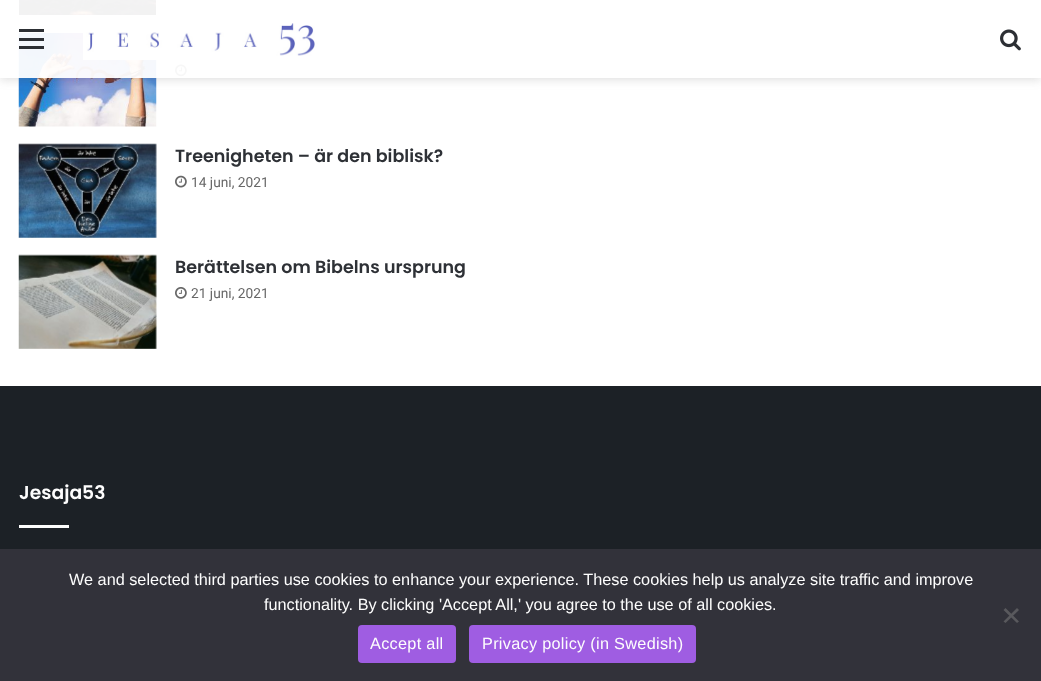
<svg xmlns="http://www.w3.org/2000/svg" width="1041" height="681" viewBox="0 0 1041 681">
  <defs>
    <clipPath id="clip1"><path d="M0 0H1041V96H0ZM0 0H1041V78H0Z" clip-rule="evenodd"/></clipPath>
  </defs>
  <rect width="100%" height="100%" fill="rgb(255,255,255)"/>
  <image x="19" y="0" width="137" height="15" href="pic3.png"/>
  <image x="18" y="32" width="139" height="95" href="pic4.png"/>
  <image x="175" y="64" width="12" height="13" href="pic5.png"/>
  <g clip-path="url(#clip1)">
    <rect x="0" y="3" width="1041" height="77" fill="rgba(99,99,99,0.2)" filter="blur(5px)"/>
  </g>
  <rect x="0" y="0" width="1041" height="78" fill="rgba(255,255,255,0.95)"/>
  <rect x="19" y="38" width="25" height="3" fill="rgb(44,47,52)"/>
  <rect x="19" y="29" width="25" height="3" fill="rgb(44,47,52)"/>
  <rect x="19" y="46" width="25" height="3" fill="rgb(44,47,52)"/>
  <image x="83" y="23" width="237" height="37" href="pic1.png"/>
  <image x="1000" y="29" width="21" height="22" href="pic2.png"/>
  <image x="18" y="143" width="139" height="95" href="pic6.png"/>
  <text x="175" y="162" font-family="Poppins" font-size="17.5" font-weight="600" fill="rgb(46,49,54)">Treenigheten – är den biblisk?</text>
  <image x="175" y="175" width="12" height="13" href="pic7.png"/>
  <text x="191" y="187" font-family="Roboto" font-size="13.75" fill="rgb(104,104,104)">14 juni, 2021</text>
  <image x="18" y="254" width="139" height="95" href="pic8.png"/>
  <text x="175" y="273" font-family="Poppins" font-size="17.5" font-weight="600" fill="rgb(46,49,54)">Berättelsen om Bibelns ursprung</text>
  <image x="175" y="287" width="12" height="12" href="pic9.png"/>
  <text x="191" y="298" font-family="Roboto" font-size="13.75" fill="rgb(104,104,104)">21 juni, 2021</text>
  <rect x="0" y="386" width="1041" height="163" fill="rgb(28,33,38)"/>
  <text x="19" y="499" font-family="Poppins" font-size="18.75" font-weight="600" fill="rgb(253,253,253)">Jesaja53</text>
  <rect x="19" y="525" width="50" height="3" fill="rgb(253,253,253)"/>
  <rect x="0" y="549" width="1041" height="132" fill="rgb(50,50,58)"/>
  <g font-family="Liberation Sans" font-size="16.25" fill="rgb(253,253,253)">
    <text x="69" y="585">We and selected third parties use cookies to enhance your experience. These cookies help us analyze site traffic and improve</text>
    <text x="264" y="610">functionality. By clicking 'Accept All,' you agree to the use of all cookies.</text>
  </g>
  <path d="M1017 608L1019 610L1005.5 623L1003.5 621.5Z" fill="rgb(89,89,93)"/>
  <path d="M1003.5 610L1005.5 608L1019 621.5L1017 623Z" fill="rgb(89,89,93)"/>
  <rect x="358" y="625" width="98" height="38" rx="4" fill="rgb(159,93,226)"/>
  <text x="370" y="649" font-family="Liberation Sans" font-size="16.25" letter-spacing="0.3" fill="rgb(253,253,253)">Accept all</text>
  <rect x="469" y="625" width="227" height="38" rx="4" fill="rgb(159,93,226)"/>
  <text x="482" y="649" font-family="Liberation Sans" font-size="16.25" letter-spacing="0.3" fill="rgb(253,253,253)">Privacy policy (in Swedish)</text>
</svg>
